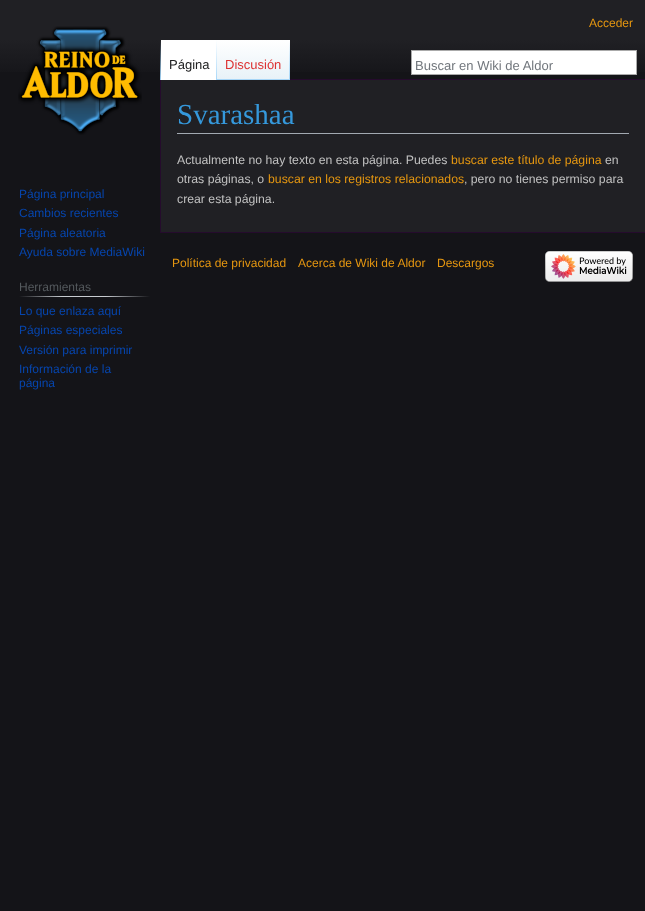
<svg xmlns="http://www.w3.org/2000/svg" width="645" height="911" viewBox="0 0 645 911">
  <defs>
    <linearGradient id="g1" gradientUnits="userSpaceOnUse" x1="323" y1="0" x2="323" y2="80"><stop offset="0.5" stop-color="rgb(32,32,36)"/><stop offset="1" stop-color="rgb(20,20,24)"/></linearGradient>
    <linearGradient id="g2" gradientUnits="userSpaceOnUse" x1="161" y1="40" x2="161" y2="80"><stop offset="0" stop-color="rgb(167,215,249)" stop-opacity="0"/><stop offset="1" stop-color="rgb(167,215,249)"/></linearGradient>
    <linearGradient id="g3" gradientUnits="userSpaceOnUse" x1="217" y1="40" x2="217" y2="80"><stop offset="0" stop-color="rgb(255,255,255)"/><stop offset="1" stop-color="rgb(167,215,249)"/></linearGradient>
    <linearGradient id="g4" gradientUnits="userSpaceOnUse" x1="254" y1="80" x2="254" y2="40"><stop offset="0" stop-color="rgb(119,193,246)"/><stop offset="0.03" stop-color="rgb(232,242,248)"/><stop offset="1" stop-color="rgb(255,255,255)"/></linearGradient>
    <linearGradient id="g5" gradientUnits="userSpaceOnUse" x1="290" y1="40" x2="290" y2="80"><stop offset="0" stop-color="rgb(167,215,249)" stop-opacity="0"/><stop offset="1" stop-color="rgb(167,215,249)"/></linearGradient>
    <linearGradient id="g6" gradientUnits="userSpaceOnUse" x1="19" y1="297" x2="150" y2="297"><stop offset="0" stop-color="rgb(20,20,24)"/><stop offset="0.33" stop-color="rgb(200,204,209)"/><stop offset="0.66" stop-color="rgb(200,204,209)"/><stop offset="1" stop-color="rgb(20,20,24)"/></linearGradient>
  </defs>
  <rect width="100%" height="100%" fill="rgb(20,20,24)"/>
  <rect x="0" y="0" width="645" height="72" fill="url(#g1)"/>
  <text x="589" y="27" font-family="Liberation Sans" font-size="12" fill="rgb(230,151,16)">Acceder</text>
  <rect x="160" y="232" width="485" height="1" fill="rgb(37,11,45)"/>
  <rect x="160" y="79" width="1" height="154" fill="rgb(37,11,45)"/>
  <rect x="160" y="40" width="1" height="40" fill="url(#g2)"/>
  <rect x="161" y="40" width="55" height="40" fill="rgb(255,255,255)"/>
  <rect x="216" y="40" width="1" height="40" fill="url(#g3)"/>
  <text x="169" y="69" font-family="Liberation Sans" font-size="13" fill="rgb(32,33,34)">Página</text>
  <rect x="217" y="40" width="73" height="40" fill="url(#g4)"/>
  <rect x="289" y="40" width="1" height="40" fill="url(#g5)"/>
  <text x="225" y="69" font-family="Liberation Sans" font-size="13" fill="rgb(221,51,51)">Discusión</text>
  <rect x="411.5" y="50.5" width="225" height="24" fill="rgb(255,255,255)" stroke="rgb(170,170,170)"/>
  <text x="415" y="70" font-family="Liberation Sans" font-size="13" fill="rgb(114,119,125)">Buscar en Wiki de Aldor</text>
  <image x="18" y="26" width="124" height="109" href="pic1.png"/>
  <g font-family="Liberation Sans" font-size="12" fill="rgb(6,69,173)">
    <text>
      <tspan x="19" y="198">Página principal</tspan>
      <tspan x="19" y="217">Cambios recientes</tspan>
      <tspan x="19" y="237">Página aleatoria</tspan>
      <tspan x="19" y="256">Ayuda sobre MediaWiki</tspan>
    </text>
  </g>
  <rect x="19" y="296" width="131" height="1" fill="url(#g6)"/>
  <text x="19" y="291" font-family="Liberation Sans" font-size="12" fill="rgb(84,89,93)">Herramientas</text>
  <g font-family="Liberation Sans" font-size="12" fill="rgb(6,69,173)">
    <text>
      <tspan x="19" y="315">Lo que enlaza aquí</tspan>
      <tspan x="19" y="334">Páginas especiales</tspan>
      <tspan x="19" y="354">Versión para imprimir</tspan>
      <tspan x="19" y="373">Información de la</tspan>
      <tspan x="19" y="387">página</tspan>
    </text>
  </g>
  <rect x="161" y="80" width="484" height="152" fill="rgb(32,32,36)"/>
  <rect x="290" y="79" width="355" height="1" fill="rgb(37,11,45)"/>
  <rect x="177" y="133" width="452" height="1" fill="rgb(162,169,177)"/>
  <text x="177" y="124" font-family="Liberation Serif" font-size="29" fill="rgb(53,152,219)">Svarashaa</text>
  <text x="177" y="164" font-family="Liberation Sans" font-size="12.25" fill="rgb(193,193,193)">Actualmente no hay texto en esta página. Puedes</text>
  <text x="451" y="164" font-family="Liberation Sans" font-size="12.25" fill="rgb(230,151,16)">buscar este título de página</text>
  <g font-family="Liberation Sans" font-size="12.25" fill="rgb(193,193,193)">
    <text x="605" y="164">en</text>
    <text x="177" y="183">otras páginas, o</text>
  </g>
  <text x="268" y="183" font-family="Liberation Sans" font-size="12.25" fill="rgb(230,151,16)">buscar en los registros relacionados</text>
  <g font-family="Liberation Sans" font-size="12.25" fill="rgb(193,193,193)">
    <text x="464" y="183">, pero no tienes permiso para</text>
    <text x="177" y="203">crear esta página.</text>
  </g>
  <g font-family="Liberation Sans" font-size="12" fill="rgb(230,151,16)">
    <text x="172" y="267">Política de privacidad</text>
    <text x="298" y="267">Acerca de Wiki de Aldor</text>
    <text x="437" y="267">Descargos</text>
  </g>
  <image x="545" y="251" width="88" height="31" href="pic2.png"/>
</svg>
